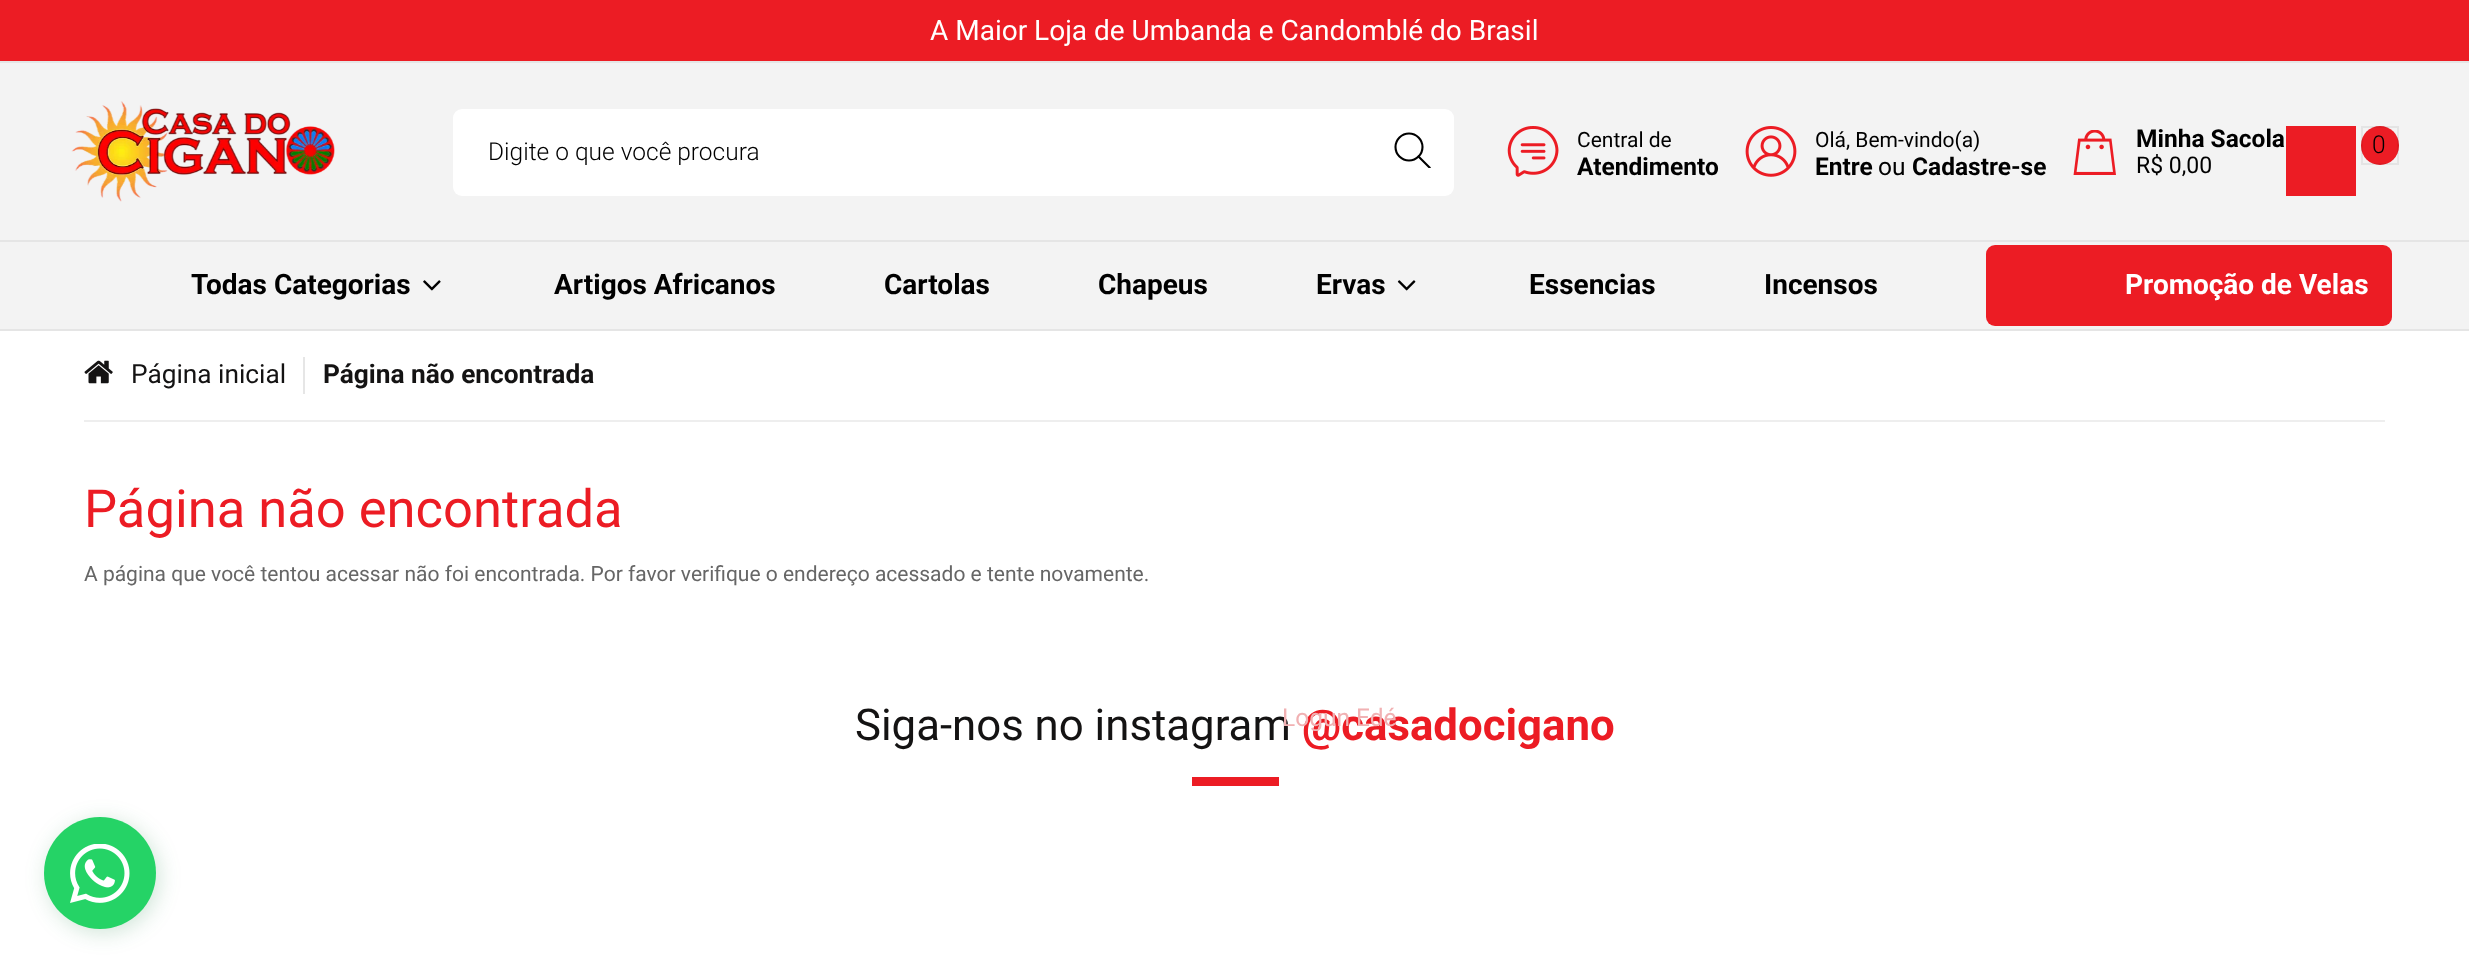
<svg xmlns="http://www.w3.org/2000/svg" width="2469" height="972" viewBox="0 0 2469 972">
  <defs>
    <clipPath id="clip1"><rect x="1393" y="131" width="39" height="37"/></clipPath>
  </defs>
  <rect width="100%" height="100%" fill="rgb(255,255,255)"/>
  <rect x="0" y="0" width="2469" height="61" fill="rgb(236,28,36)"/>
  <rect x="0" y="61" width="2469" height="2" fill="rgb(229,229,229)"/>
  <text x="930" y="40" font-family="Roboto" font-size="28" fill="rgb(255,255,255)">A Maior Loja de Umbanda e Candomblé do Brasil</text>
  <rect x="0" y="63" width="2469" height="177" fill="rgb(243,243,243)"/>
  <image x="71" y="101" width="264" height="101" href="pic1.png"/>
  <rect x="453" y="109" width="1001" height="87" rx="9" fill="rgb(255,255,255)"/>
  <text x="488" y="160" font-family="Roboto" font-size="24.5" font-weight="300" fill="rgb(0,0,0)">Digite o que você procura</text>
  <g clip-path="url(#clip1)">
    <path d="M1429.5 167.5L1418.5 156.5" fill="none" stroke="rgb(0,0,0)" stroke-width="2.1" stroke-linecap="square"/>
  </g>
  <circle cx="1409" cy="147" r="13.5" fill="none" stroke="rgb(0,0,0)" stroke-width="2.1"/>
  <image x="1507" y="126" width="52" height="51" href="pic2.png"/>
  <text x="1577" y="147" font-family="Roboto" font-size="21" fill="rgb(0,0,0)">Central de</text>
  <text x="1577" y="175" font-family="Roboto" font-size="24.5" font-weight="bold" fill="rgb(0,0,0)">Atendimento</text>
  <image x="1745" y="126" width="52" height="51" href="pic3.png"/>
  <text x="1815" y="147" font-family="Roboto" font-size="21" fill="rgb(0,0,0)">Olá, Bem-vindo(a)</text>
  <text x="1815" y="175" font-family="Roboto" font-size="24.5" font-weight="bold" fill="rgb(0,0,0)">Entre</text>
  <text x="1878" y="175" font-family="Roboto" font-size="24.5" fill="rgb(0,0,0)">ou</text>
  <text x="1912" y="175" font-family="Roboto" font-size="24.5" font-weight="bold" fill="rgb(0,0,0)">Cadastre-se</text>
  <image x="2073" y="130" width="43" height="45" href="pic4.png"/>
  <text x="2136" y="147" font-family="Roboto" font-size="24.5" font-weight="bold" fill="rgb(0,0,0)">Minha Sacola</text>
  <text x="2136" y="173" font-family="Roboto" font-size="23" fill="rgb(0,0,0)">R$ 0,00</text>
  <rect x="2286" y="126" width="70" height="70" fill="rgb(236,28,36)"/>
  <rect x="2361" y="126" width="38" height="39" rx="19" fill="rgb(236,28,36)"/>
  <rect x="2362" y="127" width="36" height="37" fill="none" stroke="rgba(0,0,0,0.06)" stroke-width="2"/>
  <text x="2372" y="153" font-family="Roboto" font-size="24.5" font-weight="300" fill="rgb(0,0,0)">0</text>
  <rect x="0" y="242" width="2469" height="87" fill="rgb(243,243,243)"/>
  <rect x="0" y="240" width="2469" height="2" fill="rgb(229,229,229)"/>
  <rect x="0" y="329" width="2469" height="2" fill="rgb(229,229,229)"/>
  <g font-family="Roboto" font-size="28" font-weight="bold" fill="rgb(0,0,0)">
    <text x="554" y="294">Artigos Africanos</text>
    <text x="191" y="294">Todas Categorias</text>
  </g>
  <image x="423" y="280" width="18" height="11" href="pic5.png"/>
  <text x="855" y="740" font-family="Roboto" font-size="43.75" fill="rgb(20,19,19)">Siga-nos no instagram</text>
  <text x="1302" y="740" font-family="Roboto" font-size="43.75" font-weight="bold" fill="rgb(236,28,36)">@casadocigano</text>
  <text x="1282" y="726" font-family="Roboto" font-size="24.5" fill="rgb(241,177,179)">Logun Edé</text>
  <g font-family="Roboto" font-size="28" font-weight="bold" fill="rgb(0,0,0)">
    <text x="884" y="294">Cartolas</text>
    <text x="1098" y="294">Chapeus</text>
    <text x="1316" y="294">Ervas</text>
  </g>
  <image x="1397" y="280" width="19" height="11" href="pic6.png"/>
  <g font-family="Roboto" font-size="28" font-weight="bold" fill="rgb(0,0,0)">
    <text x="1529" y="294">Essencias</text>
    <text x="1764" y="294">Incensos</text>
  </g>
  <rect x="1986" y="245" width="406" height="81" rx="9" fill="rgb(236,28,36)"/>
  <text x="2125" y="294" font-family="Roboto" font-size="28" font-weight="bold" fill="rgb(255,255,255)">Promoção de Velas</text>
  <rect x="84" y="420" width="2301" height="2" fill="rgb(238,238,238)"/>
  <image x="84" y="360" width="29" height="24" href="pic7.png"/>
  <text x="131" y="383" font-family="Roboto" font-size="26.25" fill="rgb(20,19,19)">Página inicial</text>
  <rect x="303" y="357" width="2" height="37" fill="rgb(230,230,230)"/>
  <text x="323" y="383" font-family="Roboto" font-size="26.25" font-weight="bold" fill="rgb(20,19,19)">Página não encontrada</text>
  <text x="84" y="527" font-family="Roboto" font-size="52.5" fill="rgb(236,28,36)">Página não encontrada</text>
  <text x="84" y="581" font-family="Roboto" font-size="21" fill="rgb(102,102,102)">A página que você tentou acessar não foi encontrada. Por favor verifique o endereço acessado e tente novamente.</text>
  <rect x="1192" y="777" width="87" height="9" fill="rgb(236,28,36)"/>
  <rect x="47" y="821" width="112" height="112" rx="56" fill="rgba(22,124,60,0.2)" filter="blur(10.5px)"/>
  <circle cx="100" cy="873" r="56" fill="rgb(37,211,102)"/>
  <image x="70" y="844" width="60" height="59" href="pic8.png"/>
</svg>
